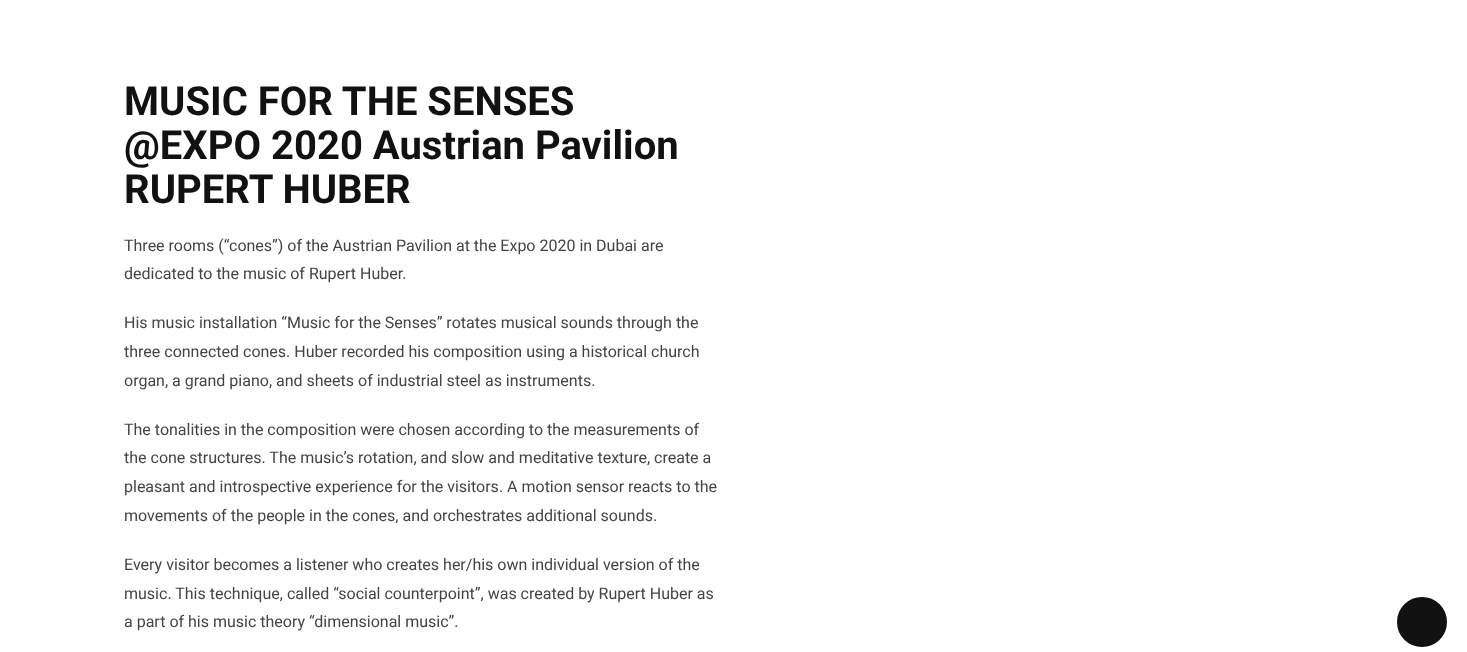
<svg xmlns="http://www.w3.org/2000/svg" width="1467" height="652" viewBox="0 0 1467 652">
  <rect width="100%" height="100%" fill="rgb(255,255,255)"/>
  <g font-family="Roboto" font-size="40" font-weight="bold" fill="rgb(17,17,17)">
    <text>
      <tspan x="124" y="115">MUSIC FOR THE SENSES</tspan>
      <tspan x="124" y="159">@EXPO 2020 Austrian Pavilion</tspan>
      <tspan x="124" y="203">RUPERT HUBER</tspan>
    </text>
  </g>
  <g font-family="Roboto" font-size="16" fill="rgb(68,68,68)">
    <text>
      <tspan x="124" y="251">Three rooms (“cones”) of the Austrian Pavilion at the Expo 2020 in Dubai are</tspan>
      <tspan x="124" y="279">dedicated to the music of Rupert Huber.</tspan>
    </text>
    <text>
      <tspan x="124" y="328">His music installation “Music for the Senses” rotates musical sounds through the</tspan>
      <tspan x="124" y="357">three connected cones. Huber recorded his composition using a historical church</tspan>
      <tspan x="124" y="386">organ, a grand piano, and sheets of industrial steel as instruments.</tspan>
    </text>
    <text>
      <tspan x="124" y="435">The tonalities in the composition were chosen according to the measurements of</tspan>
      <tspan x="124" y="463">the cone structures. The music’s rotation, and slow and meditative texture, create a</tspan>
      <tspan x="124" y="492">pleasant and introspective experience for the visitors. A motion sensor reacts to the</tspan>
      <tspan x="124" y="521">movements of the people in the cones, and orchestrates additional sounds.</tspan>
    </text>
    <text>
      <tspan x="124" y="570">Every visitor becomes a listener who creates her/his own individual version of the</tspan>
      <tspan x="124" y="599">music. This technique, called “social counterpoint”, was created by Rupert Huber as</tspan>
      <tspan x="124" y="627">a part of his music theory “dimensional music”.</tspan>
    </text>
  </g>
  <circle cx="1422" cy="622" r="24" fill="rgb(17,17,17)" stroke="rgb(17,17,17)" stroke-width="2"/>
</svg>
